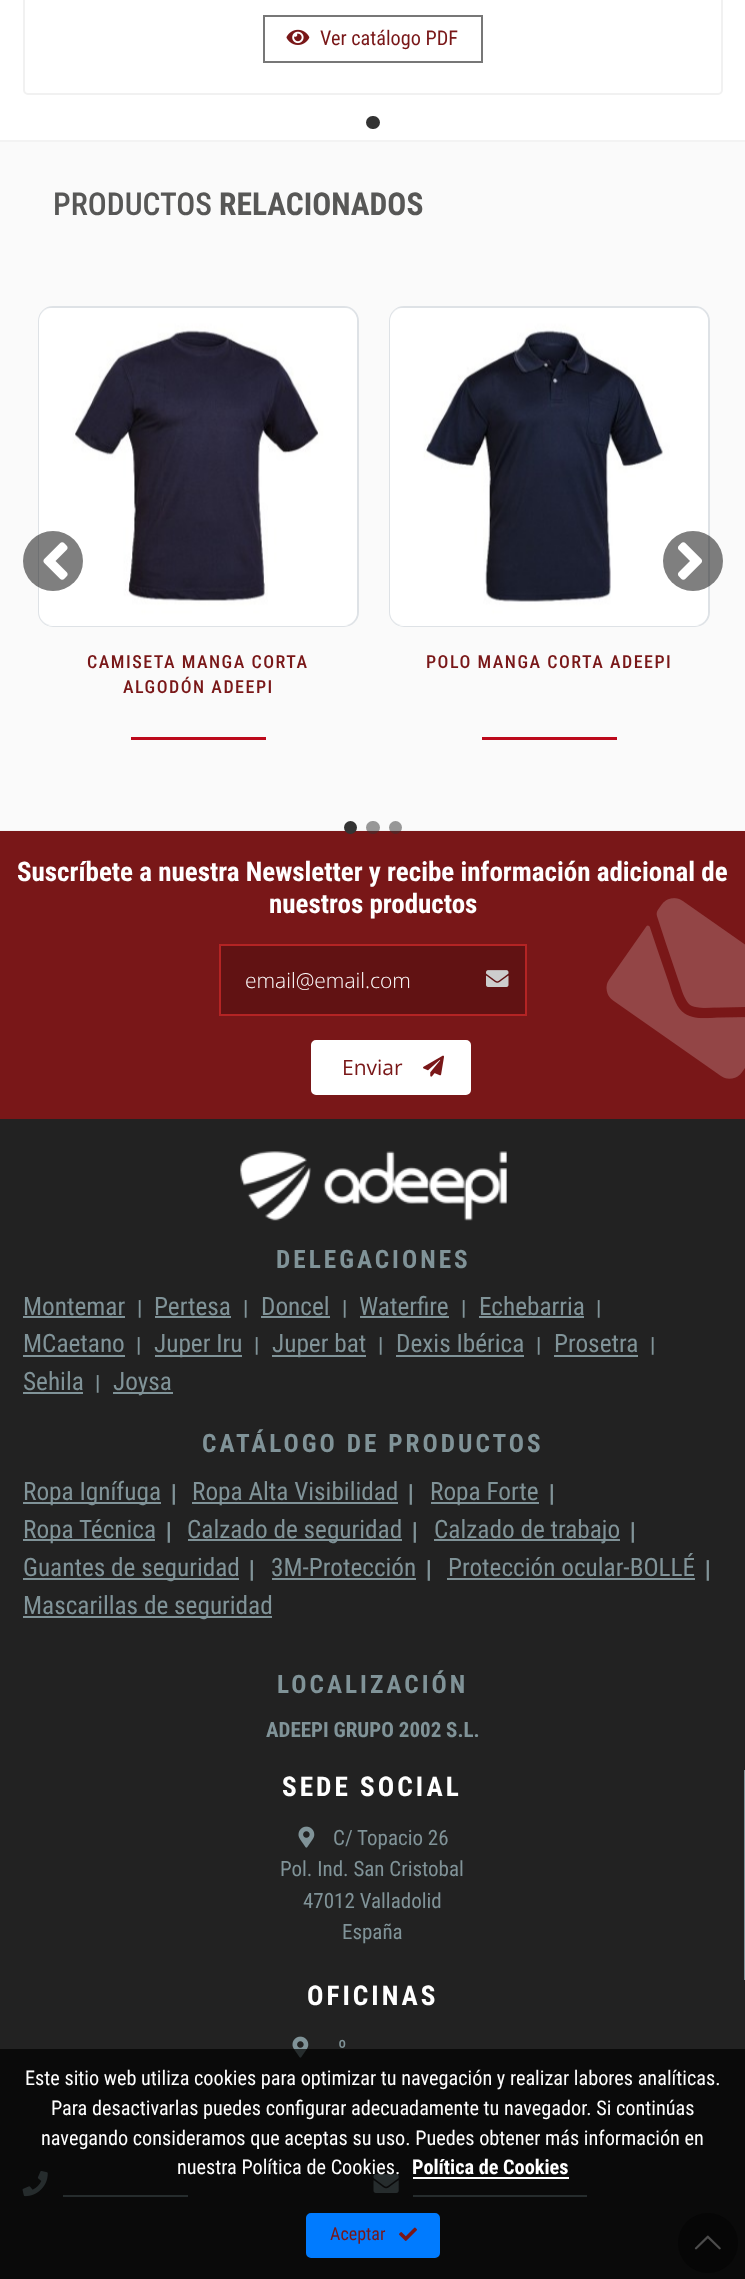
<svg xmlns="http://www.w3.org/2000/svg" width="745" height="2279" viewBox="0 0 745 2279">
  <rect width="100%" height="100%" fill="rgb(255,255,255)"/>
  <rect x="24" y="-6" width="698" height="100" rx="4" fill="none" stroke="rgb(241,241,241)" stroke-width="2"/>
  <rect x="264" y="16" width="218" height="46" fill="none" stroke="rgb(119,119,119)" stroke-width="2"/>
  <image x="286" y="29" width="24" height="16" href="pic1.png"/>
  <text x="320" y="45" font-family="Roboto Condensed" font-size="20.25" fill="rgb(121,23,24)">Ver catálogo PDF</text>
  <rect x="366" y="116" width="14" height="13" rx="6.5" fill="rgb(51,51,51)"/>
  <rect x="0" y="142" width="745" height="688" fill="rgb(250,250,250)"/>
  <rect x="0" y="140" width="745" height="2" fill="rgb(243,243,243)"/>
  <rect x="0" y="830" width="745" height="1" fill="rgb(243,243,243)"/>
  <text x="53" y="215" font-family="Roboto Condensed" font-size="31.5" font-weight="500" fill="rgb(87,87,86)">PRODUCTOS</text>
  <text x="219" y="215" font-family="Roboto Condensed" font-size="31.5" font-weight="bold" fill="rgb(87,87,86)">RELACIONADOS</text>
  <rect x="39" y="307" width="319" height="319" rx="14" fill="none" stroke="rgb(222,226,230)" stroke-width="2"/>
  <image x="39" y="308" width="318" height="318" href="pic4.png"/>
  <circle cx="53" cy="561" r="30" fill="rgba(0,0,0,0.5)"/>
  <image x="43" y="542" width="25" height="38" href="pic2.png"/>
  <rect x="390" y="307" width="319" height="319" rx="14" fill="none" stroke="rgb(222,226,230)" stroke-width="2"/>
  <image x="390" y="308" width="318" height="318" href="pic5.png"/>
  <circle cx="693" cy="561" r="30" fill="rgba(0,0,0,0.5)"/>
  <image x="678" y="542" width="24" height="38" href="pic3.png"/>
  <g font-family="Roboto Condensed" font-size="18" font-weight="500" letter-spacing="1.5" fill="rgb(121,23,24)">
    <text x="87" y="668">CAMISETA MANGA CORTA</text>
    <text x="123" y="693">ALGODÓN ADEEPI</text>
  </g>
  <rect x="131" y="737" width="135" height="3" fill="rgb(188,9,27)"/>
  <text x="426" y="668" font-family="Roboto Condensed" font-size="18" font-weight="500" letter-spacing="1.5" fill="rgb(121,23,24)">POLO MANGA CORTA ADEEPI</text>
  <rect x="482" y="737" width="135" height="3" fill="rgb(188,9,27)"/>
  <rect x="0" y="831" width="745" height="288" fill="rgb(121,23,24)"/>
  <circle cx="350.5" cy="827.5" r="6.5" fill="rgb(51,51,51)"/>
  <rect x="366" y="821" width="14" height="13" rx="6.5" fill="rgba(51,51,51,0.5)"/>
  <circle cx="395.5" cy="827.5" r="6.5" fill="rgba(51,51,51,0.5)"/>
  <g font-family="Roboto Condensed" font-size="27" font-weight="bold" fill="rgb(255,255,255)">
    <text x="17" y="881">Suscríbete a nuestra Newsletter y recibe información adicional de</text>
    <text x="269" y="913">nuestros productos</text>
  </g>
  <rect x="220" y="945" width="306" height="70" fill="rgb(97,18,19)" stroke="rgb(180,36,36)" stroke-width="2"/>
  <text x="245" y="988" font-family="Open Sans" font-size="21" font-weight="300" fill="rgb(255,255,255)">email@email.com</text>
  <image x="486" y="970" width="23" height="17" href="pic6.png"/>
  <rect x="312" y="1041" width="158" height="53" rx="4" fill="rgb(255,255,255)" stroke="rgb(255,255,255)" stroke-width="2"/>
  <text x="342" y="1075" font-family="Open Sans" font-size="21" fill="rgb(121,23,24)">Enviar</text>
  <image x="423" y="1055" width="21" height="22" href="pic7.png"/>
  <image x="606" y="898" width="139" height="181" href="pic8.png"/>
  <rect x="0" y="1119" width="745" height="1160" fill="rgb(34,34,34)"/>
  <image x="240" y="1151" width="267" height="70" href="pic9.png"/>
  <text x="276" y="1268" font-family="Roboto Condensed" font-size="25.25" font-weight="bold" letter-spacing="3" fill="rgb(128,147,152)">DELEGACIONES</text>
  <text x="23" y="1315" font-family="Roboto Condensed" font-size="25.25" fill="rgb(128,147,152)">Montemar</text>
  <rect x="23" y="1316" width="102" height="2" fill="rgb(128,147,152)"/>
  <text x="137" y="1315" font-family="Roboto Condensed" font-size="21" font-weight="bold" fill="rgb(128,147,152)">|</text>
  <text x="154" y="1315" font-family="Roboto Condensed" font-size="25.25" fill="rgb(128,147,152)">Pertesa</text>
  <rect x="155" y="1316" width="76" height="2" fill="rgb(128,147,152)"/>
  <text x="243" y="1315" font-family="Roboto Condensed" font-size="21" font-weight="bold" fill="rgb(128,147,152)">|</text>
  <text x="261" y="1315" font-family="Roboto Condensed" font-size="25.25" fill="rgb(128,147,152)">Doncel</text>
  <rect x="261" y="1316" width="69" height="2" fill="rgb(128,147,152)"/>
  <text x="342" y="1315" font-family="Roboto Condensed" font-size="21" font-weight="bold" fill="rgb(128,147,152)">|</text>
  <text x="359" y="1315" font-family="Roboto Condensed" font-size="25.25" fill="rgb(128,147,152)">Waterfire</text>
  <rect x="360" y="1316" width="89" height="2" fill="rgb(128,147,152)"/>
  <text x="461" y="1315" font-family="Roboto Condensed" font-size="21" font-weight="bold" fill="rgb(128,147,152)">|</text>
  <text x="479" y="1315" font-family="Roboto Condensed" font-size="25.25" fill="rgb(128,147,152)">Echebarria</text>
  <rect x="479" y="1316" width="105" height="2" fill="rgb(128,147,152)"/>
  <text x="596" y="1315" font-family="Roboto Condensed" font-size="21" font-weight="bold" fill="rgb(128,147,152)">|</text>
  <text x="23" y="1352" font-family="Roboto Condensed" font-size="25.25" fill="rgb(128,147,152)">MCaetano</text>
  <rect x="23" y="1355" width="102" height="2" fill="rgb(128,147,152)"/>
  <text x="136" y="1352" font-family="Roboto Condensed" font-size="21" font-weight="bold" fill="rgb(128,147,152)">|</text>
  <rect x="155" y="1355" width="87" height="2" fill="rgb(128,147,152)"/>
  <text x="154" y="1352" font-family="Roboto Condensed" font-size="25.25" fill="rgb(128,147,152)">Juper Iru</text>
  <text x="254" y="1352" font-family="Roboto Condensed" font-size="21" font-weight="bold" fill="rgb(128,147,152)">|</text>
  <rect x="272" y="1355" width="94" height="2" fill="rgb(128,147,152)"/>
  <text x="272" y="1352" font-family="Roboto Condensed" font-size="25.25" fill="rgb(128,147,152)">Juper bat</text>
  <text x="378" y="1352" font-family="Roboto Condensed" font-size="21" font-weight="bold" fill="rgb(128,147,152)">|</text>
  <text x="396" y="1352" font-family="Roboto Condensed" font-size="25.25" fill="rgb(128,147,152)">Dexis Ibérica</text>
  <rect x="396" y="1355" width="128" height="2" fill="rgb(128,147,152)"/>
  <text x="536" y="1352" font-family="Roboto Condensed" font-size="21" font-weight="bold" fill="rgb(128,147,152)">|</text>
  <text x="554" y="1352" font-family="Roboto Condensed" font-size="25.25" fill="rgb(128,147,152)">Prosetra</text>
  <rect x="554" y="1355" width="84" height="2" fill="rgb(128,147,152)"/>
  <text x="650" y="1352" font-family="Roboto Condensed" font-size="21" font-weight="bold" fill="rgb(128,147,152)">|</text>
  <text x="23" y="1390" font-family="Roboto Condensed" font-size="25.25" fill="rgb(128,147,152)">Sehila</text>
  <rect x="23" y="1392" width="60" height="2" fill="rgb(128,147,152)"/>
  <text x="95" y="1390" font-family="Roboto Condensed" font-size="21" font-weight="bold" fill="rgb(128,147,152)">|</text>
  <rect x="113" y="1392" width="60" height="2" fill="rgb(128,147,152)"/>
  <text x="113" y="1390" font-family="Roboto Condensed" font-size="25.25" fill="rgb(128,147,152)">Joysa</text>
  <text x="202" y="1452" font-family="Roboto Condensed" font-size="25.25" font-weight="bold" letter-spacing="3" fill="rgb(128,147,152)">CATÁLOGO DE PRODUCTOS</text>
  <rect x="23" y="1502" width="138" height="2" fill="rgb(128,147,152)"/>
  <text x="23" y="1500" font-family="Roboto Condensed" font-size="25.25" fill="rgb(128,147,152)">Ropa Ignífuga</text>
  <text x="168" y="1500" font-family="Open Sans" font-size="21" font-weight="bold" fill="rgb(128,147,152)">|</text>
  <rect x="192" y="1502" width="206" height="2" fill="rgb(128,147,152)"/>
  <text x="192" y="1500" font-family="Roboto Condensed" font-size="25.25" fill="rgb(128,147,152)">Ropa Alta Visibilidad</text>
  <text x="405" y="1500" font-family="Open Sans" font-size="21" font-weight="bold" fill="rgb(128,147,152)">|</text>
  <rect x="431" y="1502" width="108" height="2" fill="rgb(128,147,152)"/>
  <text x="430" y="1500" font-family="Roboto Condensed" font-size="25.25" fill="rgb(128,147,152)">Ropa Forte</text>
  <text x="546" y="1500" font-family="Open Sans" font-size="21" font-weight="bold" fill="rgb(128,147,152)">|</text>
  <rect x="23" y="1539" width="132" height="2" fill="rgb(128,147,152)"/>
  <text x="23" y="1538" font-family="Roboto Condensed" font-size="25.25" fill="rgb(128,147,152)">Ropa Técnica</text>
  <text x="163" y="1538" font-family="Open Sans" font-size="21" font-weight="bold" fill="rgb(128,147,152)">|</text>
  <rect x="188" y="1539" width="214" height="2" fill="rgb(128,147,152)"/>
  <text x="187" y="1538" font-family="Roboto Condensed" font-size="25.25" fill="rgb(128,147,152)">Calzado de seguridad</text>
  <text x="409" y="1538" font-family="Open Sans" font-size="21" font-weight="bold" fill="rgb(128,147,152)">|</text>
  <rect x="434" y="1539" width="186" height="2" fill="rgb(128,147,152)"/>
  <text x="434" y="1538" font-family="Roboto Condensed" font-size="25.25" fill="rgb(128,147,152)">Calzado de trabajo</text>
  <text x="627" y="1538" font-family="Open Sans" font-size="21" font-weight="bold" fill="rgb(128,147,152)">|</text>
  <rect x="23" y="1578" width="216" height="2" fill="rgb(128,147,152)"/>
  <text x="23" y="1576" font-family="Roboto Condensed" font-size="25.25" fill="rgb(128,147,152)">Guantes de seguridad</text>
  <text x="246" y="1576" font-family="Open Sans" font-size="21" font-weight="bold" fill="rgb(128,147,152)">|</text>
  <text x="271" y="1576" font-family="Roboto Condensed" font-size="25.25" fill="rgb(128,147,152)">3M-Protección</text>
  <rect x="272" y="1578" width="144" height="2" fill="rgb(128,147,152)"/>
  <text x="423" y="1576" font-family="Open Sans" font-size="21" font-weight="bold" fill="rgb(128,147,152)">|</text>
  <text x="448" y="1576" font-family="Roboto Condensed" font-size="25.25" fill="rgb(128,147,152)">Protección ocular-BOLLÉ</text>
  <rect x="447" y="1578" width="248" height="2" fill="rgb(128,147,152)"/>
  <text x="702" y="1576" font-family="Open Sans" font-size="21" font-weight="bold" fill="rgb(128,147,152)">|</text>
  <rect x="23" y="1616" width="249" height="2" fill="rgb(128,147,152)"/>
  <text x="23" y="1614" font-family="Roboto Condensed" font-size="25.25" fill="rgb(128,147,152)">Mascarillas de seguridad</text>
  <text x="277" y="1693" font-family="Roboto Condensed" font-size="25.25" font-weight="bold" letter-spacing="3" fill="rgb(128,147,152)">LOCALIZACIÓN</text>
  <text x="266" y="1737" font-family="Roboto Condensed" font-size="21" font-weight="bold" fill="rgb(128,147,152)">ADEEPI GRUPO 2002 S.L.</text>
  <rect x="744" y="1770" width="1" height="210" fill="rgb(128,147,152)"/>
  <text x="282" y="1796" font-family="Roboto Condensed" font-size="27.25" font-weight="bold" letter-spacing="3" fill="rgb(255,255,255)">SEDE SOCIAL</text>
  <image x="298" y="1826" width="17" height="22" href="pic10.png"/>
  <g font-family="Roboto Condensed" font-size="21" fill="rgb(128,147,152)">
    <text x="333" y="1845">C/ Topacio 26</text>
    <text x="280" y="1876">Pol. Ind. San Cristobal</text>
    <text x="303" y="1908">47012 Valladolid</text>
    <text x="342" y="1939">España</text>
  </g>
  <text x="307" y="2005" font-family="Roboto Condensed" font-size="27.25" font-weight="bold" letter-spacing="3" fill="rgb(255,255,255)">OFICINAS</text>
  <image x="292" y="2036" width="17" height="22" href="pic10.png"/>
  <text x="338" y="2055" font-family="Roboto Condensed" font-size="21" fill="rgb(128,147,152)">º</text>
  <image x="22" y="2171" width="26" height="26" href="pic11.png"/>
  <rect x="63" y="2195" width="125" height="2" fill="rgb(128,147,152)"/>
  <image x="373" y="2174" width="26" height="19" href="pic12.png"/>
  <rect x="413" y="2195" width="174" height="2" fill="rgb(128,147,152)"/>
  <circle cx="708" cy="2243" r="30" fill="rgb(20,20,20)"/>
  <image x="694" y="2235" width="27" height="15" href="pic14.png"/>
  <rect x="0" y="2049" width="745" height="230" fill="rgba(0,0,0,0.7)"/>
  <g font-family="Roboto Condensed" font-size="20.25" fill="rgb(255,255,255)">
    <text x="25" y="2085">Este sitio web utiliza cookies para optimizar tu navegación y realizar labores analíticas.</text>
    <text x="51" y="2115">Para desactivarlas puedes configurar adecuadamente tu navegador. Si continúas</text>
    <text x="41" y="2145">navegando consideramos que aceptas su uso. Puedes obtener más información en</text>
    <text x="177" y="2174">nuestra Política de Cookies.</text>
  </g>
  <text x="412" y="2174" font-family="Roboto Condensed" font-size="20.25" font-weight="bold" fill="rgb(255,255,255)">Política de Cookies</text>
  <rect x="413" y="2177" width="156" height="2" fill="rgb(255,255,255)"/>
  <rect x="307" y="2214" width="132" height="43" rx="4" fill="rgb(0,123,255)" stroke="rgb(0,123,255)" stroke-width="2"/>
  <text x="330" y="2240" font-family="Roboto Condensed" font-size="18" fill="rgb(121,23,24)">Aceptar</text>
  <image x="399" y="2227" width="18" height="14" href="pic13.png"/>
</svg>
